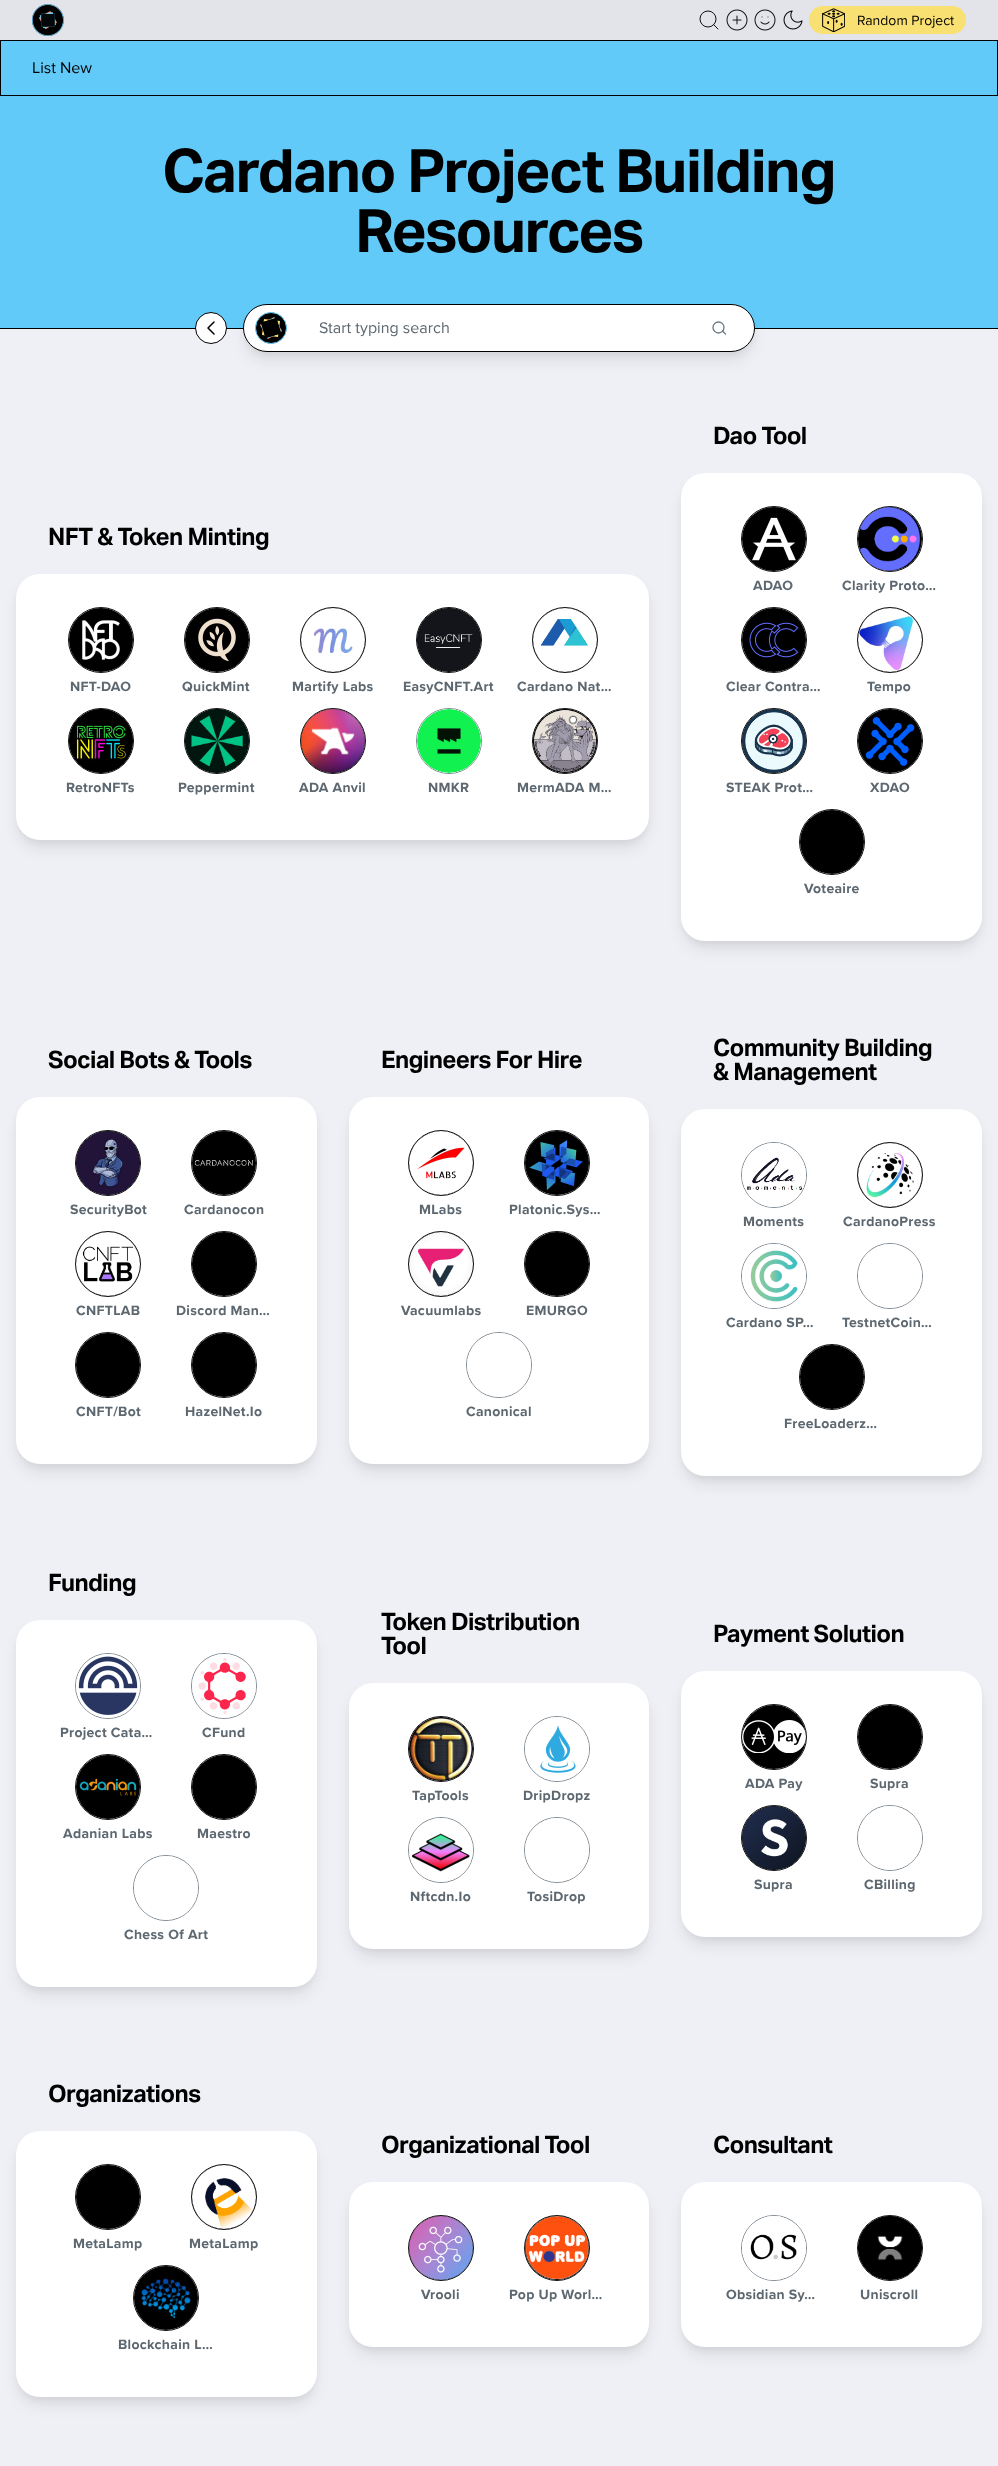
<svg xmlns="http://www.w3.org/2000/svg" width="998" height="2466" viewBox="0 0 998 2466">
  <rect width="100%" height="100%" fill="rgb(226,228,233)"/>
  <image x="32" y="4" width="32" height="32" href="pic1.png"/>
  <circle cx="708" cy="19" r="8" fill="none" stroke="rgb(18,18,18)"/>
  <path d="M718 29L713.5 24.5" fill="none" stroke="rgb(18,18,18)" stroke-linecap="round" stroke-linejoin="round"/>
  <image x="726" y="9" width="22" height="22" href="pic2.png"/>
  <image x="754" y="9" width="22" height="22" href="pic3.png"/>
  <image x="783" y="10" width="20" height="20" href="pic4.png"/>
  <rect x="809" y="6" width="157" height="28" rx="14" fill="rgb(249,224,115)"/>
  <image x="822" y="8" width="23" height="24" href="pic5.png"/>
  <text x="857" y="25" font-family="Proxima Nova" font-size="14" fill="rgb(0,0,0)">Random Project</text>
  <rect x="0" y="41" width="998" height="287" fill="rgb(97,202,248)"/>
  <rect x="0.5" y="40.5" width="997" height="55" fill="none" stroke="rgb(0,0,0)"/>
  <text x="32" y="73" font-family="Proxima Nova" font-size="16" fill="rgb(0,0,0)">List New</text>
  <g font-family="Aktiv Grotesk" font-size="60" font-weight="bold" letter-spacing="-1.5" fill="rgb(0,0,0)">
    <text x="162" y="192">Cardano Project Building</text>
    <text x="355" y="252">Resources</text>
  </g>
  <rect x="0" y="329" width="998" height="2137" fill="rgb(238,240,245)"/>
  <rect x="0" y="328" width="998" height="1" fill="rgb(0,0,0)"/>
  <circle cx="211" cy="328" r="15.5" fill="rgb(255,255,255)" stroke="rgb(0,0,0)"/>
  <path d="M214 334L208 328L214 322" fill="none" stroke="rgb(0,0,0)" stroke-width="1.5" stroke-linecap="round" stroke-linejoin="round"/>
  <rect x="245" y="310" width="508" height="44" rx="22" fill="rgba(18,18,18,0.05)" filter="blur(3px)"/>
  <rect x="246" y="317" width="506" height="42" rx="21" fill="rgba(18,18,18,0.1)" filter="blur(7.5px)"/>
  <rect x="243.5" y="304.5" width="511" height="47" rx="23.5" fill="rgb(255,255,255)" stroke="rgb(0,0,0)"/>
  <circle cx="271" cy="328" r="15.5" fill="rgb(0,0,0)" stroke="rgb(97,202,248)"/>
  <path d="M264 319L280 321L278 337L262 335Z" fill="rgb(249,224,115)"/>
  <path d="M260 325L274 317L282 331L268 339Z" fill="rgb(248,150,107)"/>
  <path d="M260.5 324L275 317.5L281.5 332L267 338.5Z" fill="rgb(97,202,248)"/>
  <path d="M261 322.5L276.5 318L281 333.5L265.5 338Z" fill="rgb(0,0,0)"/>
  <path d="M261.5 323L276 318.5L280.5 333L266 337.5Z" fill="none" stroke="rgb(0,0,0)"/>
  <text x="319" y="333" font-family="Proxima Nova" font-size="16" fill="rgb(92,103,112)">Start typing search</text>
  <circle cx="718.5" cy="327.5" r="5.5" fill="none" stroke="rgb(107,118,128)" stroke-width="1.3"/>
  <path d="M725.5 334L722.5 331" fill="none" stroke="rgb(107,118,128)" stroke-width="1.3" stroke-linecap="round" stroke-linejoin="round"/>
  <text x="48" y="545" font-family="Aktiv Grotesk" font-size="24" font-weight="bold" letter-spacing="-0.6" fill="rgb(0,0,0)">NFT &amp; Token Minting</text>
  <rect x="18" y="580" width="629" height="262" rx="22" fill="rgba(18,18,18,0.05)" filter="blur(3px)"/>
  <rect x="19" y="587" width="627" height="260" rx="21" fill="rgba(18,18,18,0.1)" filter="blur(7.5px)"/>
  <rect x="16" y="574" width="633" height="266" rx="24" fill="rgb(255,255,255)"/>
  <circle cx="101" cy="640" r="32.5" fill="none" stroke="rgb(18,18,18)"/>
  <circle cx="101" cy="640" r="32" fill="rgb(0,0,0)"/>
  <image x="82" y="620" width="38" height="40" href="pic6.png"/>
  <text x="70" y="691" font-family="Proxima Nova" font-size="14" font-weight="bold" letter-spacing="0.3" fill="rgb(92,103,112)">NFT-DAO</text>
  <circle cx="217" cy="640" r="32.5" fill="none" stroke="rgb(18,18,18)"/>
  <circle cx="217" cy="640" r="32" fill="rgb(0,0,0)"/>
  <image x="198" y="618" width="38" height="44" href="pic7.png"/>
  <text x="182" y="691" font-family="Proxima Nova" font-size="14" font-weight="bold" letter-spacing="0.3" fill="rgb(92,103,112)">QuickMint</text>
  <circle cx="333" cy="640" r="32.5" fill="none" stroke="rgb(18,18,18)"/>
  <circle cx="333" cy="640" r="32" fill="rgb(0,0,0)"/>
  <image x="301" y="608" width="64" height="64" href="pic8.png"/>
  <text x="292" y="691" font-family="Proxima Nova" font-size="14" font-weight="bold" letter-spacing="0.3" fill="rgb(92,103,112)">Martify Labs</text>
  <circle cx="449" cy="640" r="32.5" fill="none" stroke="rgb(18,18,18)"/>
  <circle cx="449" cy="640" r="32" fill="rgb(0,0,0)"/>
  <image x="417" y="609" width="64" height="62" href="pic9.png"/>
  <text x="403" y="691" font-family="Proxima Nova" font-size="14" font-weight="bold" letter-spacing="0.3" fill="rgb(92,103,112)">EasyCNFT.Art</text>
  <circle cx="565" cy="640" r="32.5" fill="none" stroke="rgb(18,18,18)"/>
  <circle cx="565" cy="640" r="32" fill="rgb(0,0,0)"/>
  <image x="533" y="608" width="64" height="64" href="pic10.png"/>
  <text x="517" y="691" font-family="Proxima Nova" font-size="14" font-weight="bold" letter-spacing="0.3" fill="rgb(92,103,112)">Cardano Nat…</text>
  <circle cx="101" cy="741" r="32.5" fill="none" stroke="rgb(18,18,18)"/>
  <circle cx="101" cy="741" r="32" fill="rgb(0,0,0)"/>
  <image x="69" y="709" width="64" height="64" href="pic11.png"/>
  <text x="66" y="792" font-family="Proxima Nova" font-size="14" font-weight="bold" letter-spacing="0.3" fill="rgb(92,103,112)">RetroNFTs</text>
  <circle cx="217" cy="741" r="32.5" fill="none" stroke="rgb(18,18,18)"/>
  <circle cx="217" cy="741" r="32" fill="rgb(0,0,0)"/>
  <image x="185" y="709" width="64" height="64" href="pic12.png"/>
  <text x="178" y="792" font-family="Proxima Nova" font-size="14" font-weight="bold" letter-spacing="0.3" fill="rgb(92,103,112)">Peppermint</text>
  <circle cx="333" cy="741" r="32.5" fill="none" stroke="rgb(18,18,18)"/>
  <circle cx="333" cy="741" r="32" fill="rgb(0,0,0)"/>
  <image x="301" y="709" width="64" height="64" href="pic13.png"/>
  <text x="299" y="792" font-family="Proxima Nova" font-size="14" font-weight="bold" letter-spacing="0.3" fill="rgb(92,103,112)">ADA Anvil</text>
  <circle cx="449" cy="741" r="32.5" fill="none" stroke="rgb(128,138,147)"/>
  <circle cx="449" cy="741" r="32" fill="rgb(255,255,255)"/>
  <image x="417" y="709" width="64" height="64" href="pic14.png"/>
  <text x="428" y="792" font-family="Proxima Nova" font-size="14" font-weight="bold" letter-spacing="0.3" fill="rgb(92,103,112)">NMKR</text>
  <circle cx="565" cy="741" r="32.5" fill="none" stroke="rgb(18,18,18)"/>
  <circle cx="565" cy="741" r="32" fill="rgb(0,0,0)"/>
  <image x="533" y="709" width="64" height="64" href="pic15.png"/>
  <text x="517" y="792" font-family="Proxima Nova" font-size="14" font-weight="bold" letter-spacing="0.3" fill="rgb(92,103,112)">MermADA M…</text>
  <text x="713" y="444" font-family="Aktiv Grotesk" font-size="24" font-weight="bold" letter-spacing="-0.6" fill="rgb(0,0,0)">Dao Tool</text>
  <rect x="683" y="479" width="297" height="464" rx="22" fill="rgba(18,18,18,0.05)" filter="blur(3px)"/>
  <rect x="684" y="486" width="295" height="462" rx="21" fill="rgba(18,18,18,0.1)" filter="blur(7.5px)"/>
  <rect x="681" y="473" width="301" height="468" rx="24" fill="rgb(255,255,255)"/>
  <circle cx="774" cy="539" r="32.5" fill="none" stroke="rgb(18,18,18)"/>
  <circle cx="774" cy="539" r="32" fill="rgb(0,0,0)"/>
  <image x="752" y="517" width="44" height="44" href="pic16.png"/>
  <text x="753" y="590" font-family="Proxima Nova" font-size="14" font-weight="bold" letter-spacing="0.3" fill="rgb(92,103,112)">ADAO</text>
  <circle cx="890" cy="539" r="32.5" fill="none" stroke="rgb(18,18,18)"/>
  <circle cx="890" cy="539" r="32" fill="rgb(0,0,0)"/>
  <image x="860" y="507" width="60" height="64" href="pic17.png"/>
  <text x="842" y="590" font-family="Proxima Nova" font-size="14" font-weight="bold" letter-spacing="0.3" fill="rgb(92,103,112)">Clarity Proto…</text>
  <circle cx="774" cy="640" r="32.5" fill="none" stroke="rgb(18,18,18)"/>
  <circle cx="774" cy="640" r="32" fill="rgb(0,0,0)"/>
  <image x="749" y="622" width="50" height="36" href="pic18.png"/>
  <text x="726" y="691" font-family="Proxima Nova" font-size="14" font-weight="bold" letter-spacing="0.3" fill="rgb(92,103,112)">Clear Contra…</text>
  <circle cx="890" cy="640" r="32.5" fill="none" stroke="rgb(18,18,18)"/>
  <circle cx="890" cy="640" r="32" fill="rgb(0,0,0)"/>
  <image x="858" y="608" width="64" height="64" href="pic19.png"/>
  <text x="867" y="691" font-family="Proxima Nova" font-size="14" font-weight="bold" letter-spacing="0.3" fill="rgb(92,103,112)">Tempo</text>
  <circle cx="774" cy="741" r="32.5" fill="none" stroke="rgb(18,18,18)"/>
  <circle cx="774" cy="741" r="32" fill="rgb(0,0,0)"/>
  <image x="742" y="709" width="64" height="64" href="pic20.png"/>
  <text x="726" y="792" font-family="Proxima Nova" font-size="14" font-weight="bold" letter-spacing="0.3" fill="rgb(92,103,112)">STEAK Prot…</text>
  <circle cx="890" cy="741" r="32.5" fill="none" stroke="rgb(18,18,18)"/>
  <circle cx="890" cy="741" r="32" fill="rgb(0,0,0)"/>
  <image x="865" y="717" width="50" height="49" href="pic21.png"/>
  <text x="870" y="792" font-family="Proxima Nova" font-size="14" font-weight="bold" letter-spacing="0.3" fill="rgb(92,103,112)">XDAO</text>
  <circle cx="832" cy="842" r="32.5" fill="none" stroke="rgb(18,18,18)"/>
  <circle cx="832" cy="842" r="32" fill="rgb(0,0,0)"/>
  <text x="804" y="893" font-family="Proxima Nova" font-size="14" font-weight="bold" letter-spacing="0.3" fill="rgb(92,103,112)">Voteaire</text>
  <text x="48" y="1068" font-family="Aktiv Grotesk" font-size="24" font-weight="bold" letter-spacing="-0.6" fill="rgb(0,0,0)">Social Bots &amp; Tools</text>
  <rect x="18" y="1103" width="297" height="363" rx="22" fill="rgba(18,18,18,0.05)" filter="blur(3px)"/>
  <rect x="19" y="1110" width="295" height="361" rx="21" fill="rgba(18,18,18,0.1)" filter="blur(7.5px)"/>
  <rect x="16" y="1097" width="301" height="367" rx="24" fill="rgb(255,255,255)"/>
  <circle cx="108" cy="1163" r="32.5" fill="none" stroke="rgb(18,18,18)"/>
  <circle cx="108" cy="1163" r="32" fill="rgb(0,0,0)"/>
  <image x="76" y="1131" width="64" height="64" href="pic22.png"/>
  <text x="70" y="1214" font-family="Proxima Nova" font-size="14" font-weight="bold" letter-spacing="0.3" fill="rgb(92,103,112)">SecurityBot</text>
  <circle cx="224" cy="1163" r="32.5" fill="none" stroke="rgb(18,18,18)"/>
  <circle cx="224" cy="1163" r="32" fill="rgb(0,0,0)"/>
  <image x="194" y="1160" width="59" height="6" href="pic23.png"/>
  <text x="184" y="1214" font-family="Proxima Nova" font-size="14" font-weight="bold" letter-spacing="0.3" fill="rgb(92,103,112)">Cardanocon</text>
  <circle cx="108" cy="1264" r="32.5" fill="none" stroke="rgb(18,18,18)"/>
  <circle cx="108" cy="1264" r="32" fill="rgb(0,0,0)"/>
  <image x="76" y="1232" width="64" height="64" href="pic24.png"/>
  <text x="76" y="1315" font-family="Proxima Nova" font-size="14" font-weight="bold" letter-spacing="0.3" fill="rgb(92,103,112)">CNFTLAB</text>
  <circle cx="224" cy="1264" r="32.5" fill="none" stroke="rgb(18,18,18)"/>
  <circle cx="224" cy="1264" r="32" fill="rgb(0,0,0)"/>
  <text x="176" y="1315" font-family="Proxima Nova" font-size="14" font-weight="bold" letter-spacing="0.3" fill="rgb(92,103,112)">Discord Man…</text>
  <circle cx="108" cy="1365" r="32.5" fill="none" stroke="rgb(18,18,18)"/>
  <circle cx="108" cy="1365" r="32" fill="rgb(0,0,0)"/>
  <text x="76" y="1416" font-family="Proxima Nova" font-size="14" font-weight="bold" letter-spacing="0.3" fill="rgb(92,103,112)">CNFT/Bot</text>
  <circle cx="224" cy="1365" r="32.5" fill="none" stroke="rgb(18,18,18)"/>
  <circle cx="224" cy="1365" r="32" fill="rgb(0,0,0)"/>
  <text x="185" y="1416" font-family="Proxima Nova" font-size="14" font-weight="bold" letter-spacing="0.3" fill="rgb(92,103,112)">HazelNet.Io</text>
  <text x="381" y="1068" font-family="Aktiv Grotesk" font-size="24" font-weight="bold" letter-spacing="-0.6" fill="rgb(0,0,0)">Engineers For Hire</text>
  <rect x="351" y="1103" width="296" height="363" rx="22" fill="rgba(18,18,18,0.05)" filter="blur(3px)"/>
  <rect x="352" y="1110" width="294" height="361" rx="21" fill="rgba(18,18,18,0.1)" filter="blur(7.5px)"/>
  <rect x="349" y="1097" width="300" height="367" rx="24" fill="rgb(255,255,255)"/>
  <circle cx="441" cy="1163" r="32.5" fill="none" stroke="rgb(18,18,18)"/>
  <circle cx="441" cy="1163" r="32" fill="rgb(0,0,0)"/>
  <image x="409" y="1131" width="64" height="64" href="pic25.png"/>
  <text x="419" y="1214" font-family="Proxima Nova" font-size="14" font-weight="bold" letter-spacing="0.3" fill="rgb(92,103,112)">MLabs</text>
  <circle cx="557" cy="1163" r="32.5" fill="none" stroke="rgb(18,18,18)"/>
  <circle cx="557" cy="1163" r="32" fill="rgb(0,0,0)"/>
  <image x="529" y="1140" width="54" height="50" href="pic26.png"/>
  <text x="509" y="1214" font-family="Proxima Nova" font-size="14" font-weight="bold" letter-spacing="0.3" fill="rgb(92,103,112)">Platonic.Sys…</text>
  <circle cx="441" cy="1264" r="32.5" fill="none" stroke="rgb(18,18,18)"/>
  <circle cx="441" cy="1264" r="32" fill="rgb(0,0,0)"/>
  <image x="409" y="1232" width="64" height="64" href="pic27.png"/>
  <text x="401" y="1315" font-family="Proxima Nova" font-size="14" font-weight="bold" letter-spacing="0.3" fill="rgb(92,103,112)">Vacuumlabs</text>
  <circle cx="557" cy="1264" r="32.5" fill="none" stroke="rgb(18,18,18)"/>
  <circle cx="557" cy="1264" r="32" fill="rgb(0,0,0)"/>
  <text x="526" y="1315" font-family="Proxima Nova" font-size="14" font-weight="bold" letter-spacing="0.3" fill="rgb(92,103,112)">EMURGO</text>
  <circle cx="499" cy="1365" r="32.5" fill="none" stroke="rgb(128,138,147)"/>
  <circle cx="499" cy="1365" r="32" fill="rgb(255,255,255)"/>
  <text x="466" y="1416" font-family="Proxima Nova" font-size="14" font-weight="bold" letter-spacing="0.3" fill="rgb(92,103,112)">Canonical</text>
  <g font-family="Aktiv Grotesk" font-size="24" font-weight="bold" letter-spacing="-0.6" fill="rgb(0,0,0)">
    <text>
      <tspan x="713" y="1056">Community Building</tspan>
      <tspan x="713" y="1080">&amp; Management</tspan>
    </text>
  </g>
  <rect x="683" y="1115" width="297" height="363" rx="22" fill="rgba(18,18,18,0.05)" filter="blur(3px)"/>
  <rect x="684" y="1122" width="295" height="361" rx="21" fill="rgba(18,18,18,0.1)" filter="blur(7.5px)"/>
  <rect x="681" y="1109" width="301" height="367" rx="24" fill="rgb(255,255,255)"/>
  <circle cx="774" cy="1175" r="32.5" fill="none" stroke="rgb(128,138,147)"/>
  <circle cx="774" cy="1175" r="32" fill="rgb(255,255,255)"/>
  <image x="742" y="1143" width="64" height="64" href="pic28.png"/>
  <text x="743" y="1226" font-family="Proxima Nova" font-size="14" font-weight="bold" letter-spacing="0.3" fill="rgb(92,103,112)">Moments</text>
  <circle cx="890" cy="1175" r="32.5" fill="none" stroke="rgb(18,18,18)"/>
  <circle cx="890" cy="1175" r="32" fill="rgb(0,0,0)"/>
  <image x="858" y="1143" width="64" height="64" href="pic29.png"/>
  <text x="843" y="1226" font-family="Proxima Nova" font-size="14" font-weight="bold" letter-spacing="0.3" fill="rgb(92,103,112)">CardanoPress</text>
  <circle cx="774" cy="1276" r="32.5" fill="none" stroke="rgb(128,138,147)"/>
  <circle cx="774" cy="1276" r="32" fill="rgb(255,255,255)"/>
  <image x="742" y="1244" width="64" height="64" href="pic30.png"/>
  <text x="726" y="1327" font-family="Proxima Nova" font-size="14" font-weight="bold" letter-spacing="0.3" fill="rgb(92,103,112)">Cardano SP…</text>
  <circle cx="890" cy="1276" r="32.5" fill="none" stroke="rgb(128,138,147)"/>
  <circle cx="890" cy="1276" r="32" fill="rgb(255,255,255)"/>
  <text x="842" y="1327" font-family="Proxima Nova" font-size="14" font-weight="bold" letter-spacing="0.3" fill="rgb(92,103,112)">TestnetCoin…</text>
  <circle cx="832" cy="1377" r="32.5" fill="none" stroke="rgb(18,18,18)"/>
  <circle cx="832" cy="1377" r="32" fill="rgb(0,0,0)"/>
  <text x="784" y="1428" font-family="Proxima Nova" font-size="14" font-weight="bold" letter-spacing="0.3" fill="rgb(92,103,112)">FreeLoaderz…</text>
  <text x="48" y="1591" font-family="Aktiv Grotesk" font-size="24" font-weight="bold" letter-spacing="-0.6" fill="rgb(0,0,0)">Funding</text>
  <rect x="18" y="1626" width="297" height="363" rx="22" fill="rgba(18,18,18,0.05)" filter="blur(3px)"/>
  <rect x="19" y="1633" width="295" height="361" rx="21" fill="rgba(18,18,18,0.1)" filter="blur(7.5px)"/>
  <rect x="16" y="1620" width="301" height="367" rx="24" fill="rgb(255,255,255)"/>
  <circle cx="108" cy="1686" r="32.5" fill="none" stroke="rgb(128,138,147)"/>
  <circle cx="108" cy="1686" r="32" fill="rgb(255,255,255)"/>
  <image x="78" y="1656" width="60" height="59" href="pic31.png"/>
  <text x="60" y="1737" font-family="Proxima Nova" font-size="14" font-weight="bold" letter-spacing="0.3" fill="rgb(92,103,112)">Project Cata…</text>
  <circle cx="224" cy="1686" r="32.5" fill="none" stroke="rgb(128,138,147)"/>
  <circle cx="224" cy="1686" r="32" fill="rgb(255,255,255)"/>
  <image x="198" y="1658" width="48" height="56" href="pic32.png"/>
  <text x="202" y="1737" font-family="Proxima Nova" font-size="14" font-weight="bold" letter-spacing="0.3" fill="rgb(92,103,112)">CFund</text>
  <circle cx="108" cy="1787" r="32.5" fill="none" stroke="rgb(18,18,18)"/>
  <circle cx="108" cy="1787" r="32" fill="rgb(0,0,0)"/>
  <image x="79" y="1778" width="58" height="18" href="pic33.png"/>
  <text x="63" y="1838" font-family="Proxima Nova" font-size="14" font-weight="bold" letter-spacing="0.3" fill="rgb(92,103,112)">Adanian Labs</text>
  <circle cx="224" cy="1787" r="32.5" fill="none" stroke="rgb(18,18,18)"/>
  <circle cx="224" cy="1787" r="32" fill="rgb(0,0,0)"/>
  <text x="197" y="1838" font-family="Proxima Nova" font-size="14" font-weight="bold" letter-spacing="0.3" fill="rgb(92,103,112)">Maestro</text>
  <circle cx="166" cy="1888" r="32.5" fill="none" stroke="rgb(128,138,147)"/>
  <circle cx="166" cy="1888" r="32" fill="rgb(255,255,255)"/>
  <text x="124" y="1939" font-family="Proxima Nova" font-size="14" font-weight="bold" letter-spacing="0.3" fill="rgb(92,103,112)">Chess Of Art</text>
  <g font-family="Aktiv Grotesk" font-size="24" font-weight="bold" letter-spacing="-0.6" fill="rgb(0,0,0)">
    <text>
      <tspan x="381" y="1630">Token Distribution</tspan>
      <tspan x="381" y="1654">Tool</tspan>
    </text>
  </g>
  <rect x="351" y="1689" width="296" height="262" rx="22" fill="rgba(18,18,18,0.05)" filter="blur(3px)"/>
  <rect x="352" y="1696" width="294" height="260" rx="21" fill="rgba(18,18,18,0.1)" filter="blur(7.5px)"/>
  <rect x="349" y="1683" width="300" height="266" rx="24" fill="rgb(255,255,255)"/>
  <circle cx="441" cy="1749" r="32.5" fill="none" stroke="rgb(18,18,18)"/>
  <circle cx="441" cy="1749" r="32" fill="rgb(0,0,0)"/>
  <image x="410" y="1718" width="62" height="63" href="pic34.png"/>
  <text x="412" y="1800" font-family="Proxima Nova" font-size="14" font-weight="bold" letter-spacing="0.3" fill="rgb(92,103,112)">TapTools</text>
  <circle cx="557" cy="1749" r="32.5" fill="none" stroke="rgb(128,138,147)"/>
  <circle cx="557" cy="1749" r="32" fill="rgb(255,255,255)"/>
  <image x="540" y="1725" width="36" height="48" href="pic35.png"/>
  <text x="523" y="1800" font-family="Proxima Nova" font-size="14" font-weight="bold" letter-spacing="0.3" fill="rgb(92,103,112)">DripDropz</text>
  <circle cx="441" cy="1850" r="32.5" fill="none" stroke="rgb(128,138,147)"/>
  <circle cx="441" cy="1850" r="32" fill="rgb(255,255,255)"/>
  <image x="412" y="1833" width="58" height="39" href="pic36.png"/>
  <text x="410" y="1901" font-family="Proxima Nova" font-size="14" font-weight="bold" letter-spacing="0.3" fill="rgb(92,103,112)">Nftcdn.Io</text>
  <circle cx="557" cy="1850" r="32.5" fill="none" stroke="rgb(128,138,147)"/>
  <circle cx="557" cy="1850" r="32" fill="rgb(255,255,255)"/>
  <text x="527" y="1901" font-family="Proxima Nova" font-size="14" font-weight="bold" letter-spacing="0.3" fill="rgb(92,103,112)">TosiDrop</text>
  <text x="713" y="1642" font-family="Aktiv Grotesk" font-size="24" font-weight="bold" letter-spacing="-0.6" fill="rgb(0,0,0)">Payment Solution</text>
  <rect x="683" y="1677" width="297" height="262" rx="22" fill="rgba(18,18,18,0.05)" filter="blur(3px)"/>
  <rect x="684" y="1684" width="295" height="260" rx="21" fill="rgba(18,18,18,0.1)" filter="blur(7.5px)"/>
  <rect x="681" y="1671" width="301" height="266" rx="24" fill="rgb(255,255,255)"/>
  <circle cx="774" cy="1737" r="32.5" fill="none" stroke="rgb(18,18,18)"/>
  <circle cx="774" cy="1737" r="32" fill="rgb(0,0,0)"/>
  <image x="742" y="1720" width="64" height="33" href="pic37.png"/>
  <text x="745" y="1788" font-family="Proxima Nova" font-size="14" font-weight="bold" letter-spacing="0.3" fill="rgb(92,103,112)">ADA Pay</text>
  <circle cx="890" cy="1737" r="32.5" fill="none" stroke="rgb(18,18,18)"/>
  <circle cx="890" cy="1737" r="32" fill="rgb(0,0,0)"/>
  <text x="870" y="1788" font-family="Proxima Nova" font-size="14" font-weight="bold" letter-spacing="0.3" fill="rgb(92,103,112)">Supra</text>
  <circle cx="774" cy="1838" r="32.5" fill="none" stroke="rgb(18,18,18)"/>
  <circle cx="774" cy="1838" r="32" fill="rgb(0,0,0)"/>
  <image x="742" y="1806" width="64" height="64" href="pic38.png"/>
  <text x="754" y="1889" font-family="Proxima Nova" font-size="14" font-weight="bold" letter-spacing="0.3" fill="rgb(92,103,112)">Supra</text>
  <circle cx="890" cy="1838" r="32.5" fill="none" stroke="rgb(128,138,147)"/>
  <circle cx="890" cy="1838" r="32" fill="rgb(255,255,255)"/>
  <text x="864" y="1889" font-family="Proxima Nova" font-size="14" font-weight="bold" letter-spacing="0.3" fill="rgb(92,103,112)">CBilling</text>
  <text x="48" y="2102" font-family="Aktiv Grotesk" font-size="24" font-weight="bold" letter-spacing="-0.6" fill="rgb(0,0,0)">Organizations</text>
  <rect x="18" y="2137" width="297" height="262" rx="22" fill="rgba(18,18,18,0.05)" filter="blur(3px)"/>
  <rect x="19" y="2144" width="295" height="260" rx="21" fill="rgba(18,18,18,0.1)" filter="blur(7.5px)"/>
  <rect x="16" y="2131" width="301" height="266" rx="24" fill="rgb(255,255,255)"/>
  <circle cx="108" cy="2197" r="32.5" fill="none" stroke="rgb(18,18,18)"/>
  <circle cx="108" cy="2197" r="32" fill="rgb(0,0,0)"/>
  <text x="73" y="2248" font-family="Proxima Nova" font-size="14" font-weight="bold" letter-spacing="0.3" fill="rgb(92,103,112)">MetaLamp</text>
  <circle cx="224" cy="2197" r="32.5" fill="none" stroke="rgb(18,18,18)"/>
  <circle cx="224" cy="2197" r="32" fill="rgb(0,0,0)"/>
  <image x="192" y="2165" width="64" height="64" href="pic39.png"/>
  <text x="189" y="2248" font-family="Proxima Nova" font-size="14" font-weight="bold" letter-spacing="0.3" fill="rgb(92,103,112)">MetaLamp</text>
  <circle cx="166" cy="2298" r="32.5" fill="none" stroke="rgb(18,18,18)"/>
  <circle cx="166" cy="2298" r="32" fill="rgb(0,0,0)"/>
  <image x="141" y="2278" width="50" height="40" href="pic40.png"/>
  <text x="118" y="2349" font-family="Proxima Nova" font-size="14" font-weight="bold" letter-spacing="0.3" fill="rgb(92,103,112)">Blockchain L…</text>
  <text x="381" y="2153" font-family="Aktiv Grotesk" font-size="24" font-weight="bold" letter-spacing="-0.6" fill="rgb(0,0,0)">Organizational Tool</text>
  <rect x="351" y="2188" width="296" height="161" rx="22" fill="rgba(18,18,18,0.05)" filter="blur(3px)"/>
  <rect x="352" y="2195" width="294" height="159" rx="21" fill="rgba(18,18,18,0.1)" filter="blur(7.5px)"/>
  <rect x="349" y="2182" width="300" height="165" rx="24" fill="rgb(255,255,255)"/>
  <circle cx="441" cy="2248" r="32.5" fill="none" stroke="rgb(18,18,18)"/>
  <circle cx="441" cy="2248" r="32" fill="rgb(0,0,0)"/>
  <image x="409" y="2216" width="64" height="64" href="pic41.png"/>
  <text x="421" y="2299" font-family="Proxima Nova" font-size="14" font-weight="bold" letter-spacing="0.3" fill="rgb(92,103,112)">Vrooli</text>
  <circle cx="557" cy="2248" r="32.5" fill="none" stroke="rgb(18,18,18)"/>
  <circle cx="557" cy="2248" r="32" fill="rgb(0,0,0)"/>
  <image x="525" y="2216" width="64" height="63" href="pic42.png"/>
  <text x="509" y="2299" font-family="Proxima Nova" font-size="14" font-weight="bold" letter-spacing="0.3" fill="rgb(92,103,112)">Pop Up Worl…</text>
  <text x="713" y="2153" font-family="Aktiv Grotesk" font-size="24" font-weight="bold" letter-spacing="-0.6" fill="rgb(0,0,0)">Consultant</text>
  <rect x="683" y="2188" width="297" height="161" rx="22" fill="rgba(18,18,18,0.05)" filter="blur(3px)"/>
  <rect x="684" y="2195" width="295" height="159" rx="21" fill="rgba(18,18,18,0.1)" filter="blur(7.5px)"/>
  <rect x="681" y="2182" width="301" height="165" rx="24" fill="rgb(255,255,255)"/>
  <circle cx="774" cy="2248" r="32.5" fill="none" stroke="rgb(128,138,147)"/>
  <circle cx="774" cy="2248" r="32" fill="rgb(255,255,255)"/>
  <image x="742" y="2216" width="64" height="64" href="pic43.png"/>
  <text x="726" y="2299" font-family="Proxima Nova" font-size="14" font-weight="bold" letter-spacing="0.3" fill="rgb(92,103,112)">Obsidian Sy…</text>
  <circle cx="890" cy="2248" r="32.5" fill="none" stroke="rgb(18,18,18)"/>
  <circle cx="890" cy="2248" r="32" fill="rgb(0,0,0)"/>
  <image x="858" y="2216" width="64" height="64" href="pic44.png"/>
  <text x="860" y="2299" font-family="Proxima Nova" font-size="14" font-weight="bold" letter-spacing="0.3" fill="rgb(92,103,112)">Uniscroll</text>
</svg>
